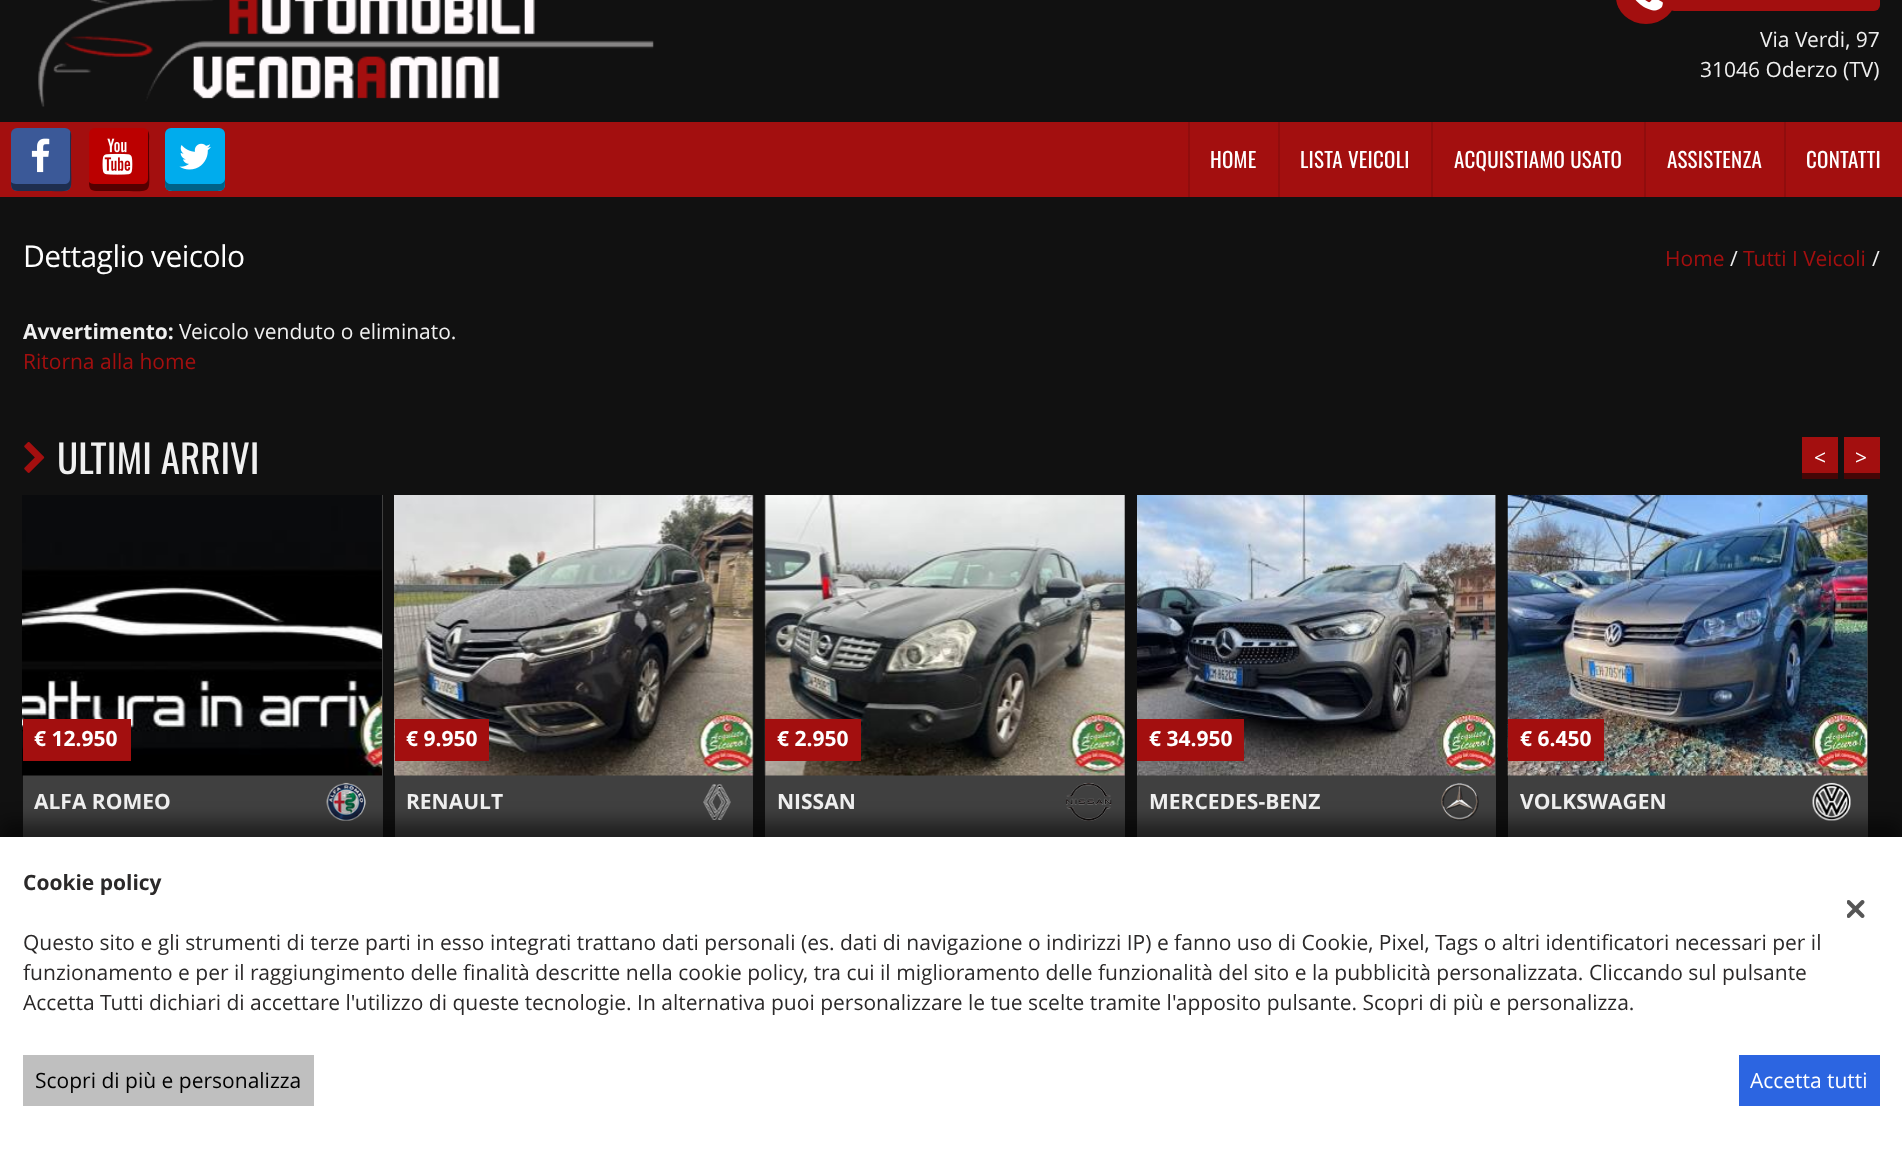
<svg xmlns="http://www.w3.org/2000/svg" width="1902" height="1150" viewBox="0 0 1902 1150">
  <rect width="100%" height="100%" fill="rgb(17,17,17)"/>
  <image x="38" y="0" width="616" height="107" href="pic1.png"/>
  <rect x="1616" y="-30" width="60" height="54" rx="30" fill="rgb(163,15,15)"/>
  <image x="1635" y="0" width="28" height="11" href="pic2.png"/>
  <rect x="1668" y="-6" width="212" height="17" rx="6" fill="rgb(163,15,15)"/>
  <g font-family="Open Sans" font-size="21" fill="rgb(240,240,240)">
    <text x="1760" y="47">Via Verdi, 97</text>
    <text x="1700" y="77">31046 Oderzo (TV)</text>
  </g>
  <rect x="0" y="122" width="1902" height="75" fill="rgb(163,15,15)"/>
  <rect x="11" y="128" width="60" height="63" rx="6" fill="rgb(59,89,152)"/>
  <path d="M11 182C11 192 15 191 25 191H41C77 191 71 196 71 160V142C71 140 72 134 70 131V178C70 182 68 184 64 184H16C14 184 12 183 11 182Z" fill="rgb(30,46,79)"/>
  <image x="31" y="138" width="19" height="35" href="pic3.png"/>
  <rect x="89" y="128" width="60" height="63" rx="6" fill="rgb(187,0,0)"/>
  <path d="M89 182C89 192 93 191 103 191H119C155 191 149 196 149 160V142C149 140 150 134 148 131V178C148 182 146 184 142 184H94C92 184 90 183 89 182Z" fill="rgb(85,0,0)"/>
  <image x="102" y="138" width="31" height="37" href="pic4.png"/>
  <rect x="165" y="128" width="60" height="63" rx="6" fill="rgb(0,172,237)"/>
  <path d="M165 178C165 191 165 191 179 191H211C225 191 225 191 225 178C225 182 222 184 219 184H171C168 184 165 182 165 178Z" fill="rgb(0,98,135)"/>
  <image x="179" y="143" width="32" height="27" href="pic5.png"/>
  <rect x="1188" y="122" width="2" height="75" fill="rgb(144,13,13)"/>
  <text x="1210" y="168" font-family="Oswald" font-size="21" letter-spacing="0.25" fill="rgb(255,255,255)">HOME</text>
  <rect x="1278" y="122" width="2" height="75" fill="rgb(144,13,13)"/>
  <text x="1300" y="168" font-family="Oswald" font-size="21" letter-spacing="0.25" fill="rgb(255,255,255)">LISTA VEICOLI</text>
  <rect x="1431" y="122" width="2" height="75" fill="rgb(144,13,13)"/>
  <text x="1454" y="168" font-family="Oswald" font-size="21" letter-spacing="0.25" fill="rgb(255,255,255)">ACQUISTIAMO USATO</text>
  <rect x="1644" y="122" width="2" height="75" fill="rgb(144,13,13)"/>
  <text x="1667" y="168" font-family="Oswald" font-size="21" letter-spacing="0.25" fill="rgb(255,255,255)">ASSISTENZA</text>
  <rect x="1784" y="122" width="2" height="75" fill="rgb(144,13,13)"/>
  <text x="1806" y="168" font-family="Oswald" font-size="21" letter-spacing="0.25" fill="rgb(255,255,255)">CONTATTI</text>
  <text x="23" y="267" font-family="Open Sans" font-size="30" letter-spacing="-0.6" fill="rgb(255,255,255)">Dettaglio veicolo</text>
  <text x="1665" y="266" font-family="Open Sans" font-size="21" fill="rgb(163,15,15)">Home</text>
  <text x="1730" y="266" font-family="Open Sans" font-size="21" fill="rgb(240,240,240)">/</text>
  <text x="1743" y="266" font-family="Open Sans" font-size="21" fill="rgb(163,15,15)">Tutti I Veicoli</text>
  <text x="1872" y="266" font-family="Open Sans" font-size="21" fill="rgb(240,240,240)">/</text>
  <text x="23" y="339" font-family="Open Sans" font-size="21" font-weight="bold" fill="rgb(240,240,240)">Avvertimento:</text>
  <text x="179" y="339" font-family="Open Sans" font-size="21" fill="rgb(240,240,240)">Veicolo venduto o eliminato.</text>
  <text x="23" y="369" font-family="Open Sans" font-size="21" fill="rgb(163,15,15)">Ritorna alla home</text>
  <image x="24" y="441" width="21" height="32" href="pic6.png"/>
  <text x="57" y="474" font-family="Oswald" font-size="39" fill="rgb(240,240,240)">ULTIMI ARRIVI</text>
  <rect x="1802" y="437" width="36" height="36" fill="rgb(163,15,15)"/>
  <rect x="1802" y="473" width="36" height="6" fill="rgb(70,6,6)"/>
  <text x="1814" y="465" font-family="Open Sans" font-size="21" fill="rgb(255,255,255)">&lt;</text>
  <rect x="1844" y="437" width="36" height="36" fill="rgb(163,15,15)"/>
  <rect x="1844" y="473" width="36" height="6" fill="rgb(70,6,6)"/>
  <text x="1855" y="465" font-family="Open Sans" font-size="21" fill="rgb(255,255,255)">&gt;</text>
  <rect x="23" y="495" width="360" height="342" fill="rgb(64,64,64)"/>
  <image x="22" y="495" width="360" height="281" href="pic7.png"/>
  <rect x="23" y="719" width="108" height="42" fill="rgb(163,15,15)"/>
  <text x="34" y="746" font-family="Open Sans" font-size="21" font-weight="bold" fill="rgb(255,255,255)">€ 12.950</text>
  <text x="34" y="809" font-family="Open Sans" font-size="21" font-weight="bold" fill="rgb(240,240,240)">ALFA ROMEO</text>
  <image x="326" y="782" width="40" height="39" href="pic8.png"/>
  <rect x="395" y="495" width="358" height="342" fill="rgb(64,64,64)"/>
  <image x="394" y="495" width="360" height="281" href="pic9.png"/>
  <rect x="395" y="719" width="94" height="42" fill="rgb(163,15,15)"/>
  <text x="406" y="746" font-family="Open Sans" font-size="21" font-weight="bold" fill="rgb(255,255,255)">€ 9.950</text>
  <text x="406" y="809" font-family="Open Sans" font-size="21" font-weight="bold" fill="rgb(240,240,240)">RENAULT</text>
  <image x="703" y="784" width="28" height="36" href="pic10.png"/>
  <rect x="765" y="495" width="360" height="342" fill="rgb(64,64,64)"/>
  <image x="764" y="495" width="361" height="281" href="pic11.png"/>
  <rect x="765" y="719" width="96" height="42" fill="rgb(163,15,15)"/>
  <text x="777" y="746" font-family="Open Sans" font-size="21" font-weight="bold" fill="rgb(255,255,255)">€ 2.950</text>
  <text x="777" y="809" font-family="Open Sans" font-size="21" font-weight="bold" fill="rgb(240,240,240)">NISSAN</text>
  <image x="1066" y="783" width="46" height="38" href="pic12.png"/>
  <rect x="1137" y="495" width="359" height="342" fill="rgb(64,64,64)"/>
  <image x="1137" y="495" width="359" height="281" href="pic13.png"/>
  <rect x="1137" y="719" width="107" height="42" fill="rgb(163,15,15)"/>
  <text x="1149" y="746" font-family="Open Sans" font-size="21" font-weight="bold" fill="rgb(255,255,255)">€ 34.950</text>
  <text x="1149" y="809" font-family="Open Sans" font-size="21" font-weight="bold" fill="rgb(240,240,240)">MERCEDES-BENZ</text>
  <image x="1441" y="783" width="38" height="38" href="pic14.png"/>
  <rect x="1508" y="495" width="360" height="342" fill="rgb(64,64,64)"/>
  <image x="1507" y="495" width="361" height="281" href="pic15.png"/>
  <rect x="1508" y="719" width="96" height="42" fill="rgb(163,15,15)"/>
  <text x="1520" y="746" font-family="Open Sans" font-size="21" font-weight="bold" fill="rgb(255,255,255)">€ 6.450</text>
  <text x="1520" y="809" font-family="Open Sans" font-size="21" font-weight="bold" fill="rgb(240,240,240)">VOLKSWAGEN</text>
  <image x="1812" y="782" width="39" height="39" href="pic16.png"/>
  <rect x="0" y="822" width="1902" height="314" fill="rgba(0,0,0,0.5)" filter="blur(9px)"/>
  <rect x="0" y="837" width="1902" height="313" fill="rgb(255,255,255)"/>
  <text x="23" y="890" font-family="Open Sans" font-size="21" font-weight="bold" fill="rgb(43,41,41)">Cookie policy</text>
  <g font-family="Open Sans" font-size="21" fill="rgb(43,41,41)">
    <text>
      <tspan x="23" y="950">Questo sito e gli strumenti di terze parti in esso integrati trattano dati personali (es. dati di navigazione o indirizzi IP) e fanno uso di Cookie, Pixel, Tags o altri identificatori necessari per il</tspan>
      <tspan x="23" y="980">funzionamento e per il raggiungimento delle finalità descritte nella cookie policy, tra cui il miglioramento delle funzionalità del sito e la pubblicità personalizzata. Cliccando sul pulsante</tspan>
      <tspan x="23" y="1010">Accetta Tutti dichiari di accettare l'utilizzo di queste tecnologie. In alternativa puoi personalizzare le tue scelte tramite l'apposito pulsante. Scopri di più e personalizza.</tspan>
    </text>
  </g>
  <rect x="23" y="1055" width="291" height="51" fill="rgb(191,191,191)"/>
  <text x="35" y="1088" font-family="Open Sans" font-size="21" fill="rgb(0,0,0)">Scopri di più e personalizza</text>
  <rect x="1739" y="1055" width="141" height="51" fill="rgb(44,101,225)"/>
  <text x="1750" y="1088" font-family="Open Sans" font-size="21" fill="rgb(255,255,255)">Accetta tutti</text>
  <image x="1847" y="900" width="18" height="18" href="pic17.png"/>
</svg>
